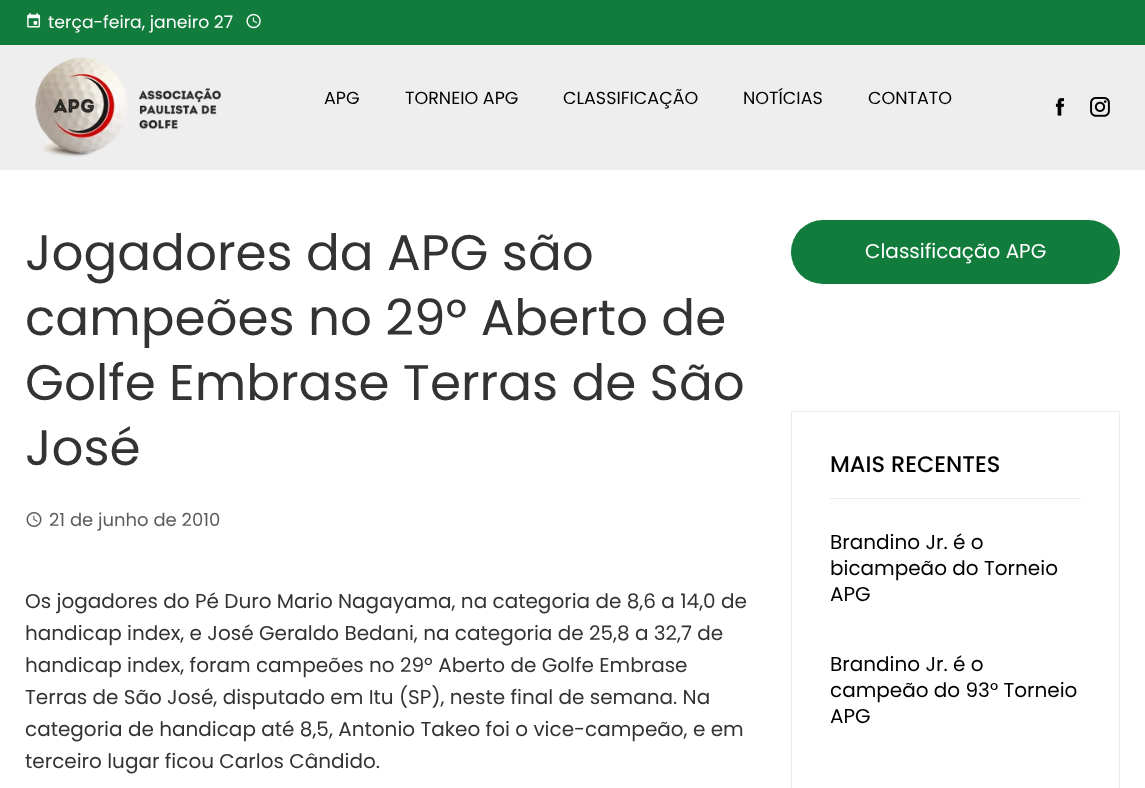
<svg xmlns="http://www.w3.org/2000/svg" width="1145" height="788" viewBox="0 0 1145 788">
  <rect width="100%" height="100%" fill="rgb(255,255,255)"/>
  <rect x="0" y="0" width="1145" height="45" fill="rgb(18,124,60)"/>
  <image x="27" y="13" width="14" height="15" href="pic1.png"/>
  <text x="48" y="28" font-family="Poppins" font-size="17.25" fill="rgb(255,255,255)">terça-feira, janeiro 27</text>
  <image x="246" y="13" width="15" height="16" href="pic2.png"/>
  <rect x="0" y="45" width="1145" height="125" fill="rgb(238,238,238)"/>
  <image x="35" y="57" width="186" height="100" href="pic3.png"/>
  <g font-family="Poppins" font-size="17.5" fill="rgb(0,0,0)">
    <text x="324" y="104">APG</text>
    <text x="405" y="104">TORNEIO APG</text>
    <text x="563" y="104">CLASSIFICAÇÃO</text>
    <text x="743" y="104">NOTÍCIAS</text>
    <text x="868" y="104">CONTATO</text>
  </g>
  <image x="1055" y="98" width="10" height="18" href="pic4.png"/>
  <image x="1090" y="97" width="20" height="20" href="pic5.png"/>
  <g font-family="Poppins" font-size="50" fill="rgb(51,51,51)">
    <text>
      <tspan x="25" y="270">Jogadores da APG são</tspan>
      <tspan x="25" y="335">campeões no 29º Aberto de</tspan>
      <tspan x="25" y="400">Golfe Embrase Terras de São</tspan>
      <tspan x="25" y="465">José</tspan>
    </text>
  </g>
  <image x="26" y="512" width="16" height="15" href="pic6.png"/>
  <text x="49" y="526" font-family="Poppins" font-size="18" fill="rgb(92,92,92)">21 de junho de 2010</text>
  <g font-family="Poppins" font-size="20" fill="rgb(51,51,51)">
    <text>
      <tspan x="25" y="608">Os jogadores do Pé Duro Mario Nagayama, na categoria de 8,6 a 14,0 de</tspan>
      <tspan x="25" y="640">handicap index, e José Geraldo Bedani, na categoria de 25,8 a 32,7 de</tspan>
      <tspan x="25" y="672">handicap index, foram campeões no 29º Aberto de Golfe Embrase</tspan>
      <tspan x="25" y="704">Terras de São José, disputado em Itu (SP), neste final de semana. Na</tspan>
      <tspan x="25" y="736">categoria de handicap até 8,5, Antonio Takeo foi o vice-campeão, e em</tspan>
      <tspan x="25" y="768">terceiro lugar ficou Carlos Cândido.</tspan>
    </text>
  </g>
  <rect x="791" y="220" width="329" height="64" rx="32" fill="rgb(18,124,60)"/>
  <text x="865" y="258" font-family="Poppins" font-size="20" fill="rgb(255,255,255)">Classificação APG</text>
  <rect x="791.5" y="411.5" width="328" height="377" fill="none" stroke="rgb(235,235,235)"/>
  <rect x="830" y="498" width="251" height="1" fill="rgb(235,235,235)"/>
  <text x="830" y="472" font-family="Poppins" font-size="22.5" font-weight="500" fill="rgb(0,0,0)">MAIS RECENTES</text>
  <g font-family="Poppins" font-size="20" fill="rgb(0,0,0)">
    <text>
      <tspan x="830" y="549">Brandino Jr. é o</tspan>
      <tspan x="830" y="575">bicampeão do Torneio</tspan>
      <tspan x="830" y="601">APG</tspan>
    </text>
    <text>
      <tspan x="830" y="671">Brandino Jr. é o</tspan>
      <tspan x="830" y="697">campeão do 93° Torneio</tspan>
      <tspan x="830" y="723">APG</tspan>
    </text>
  </g>
</svg>
